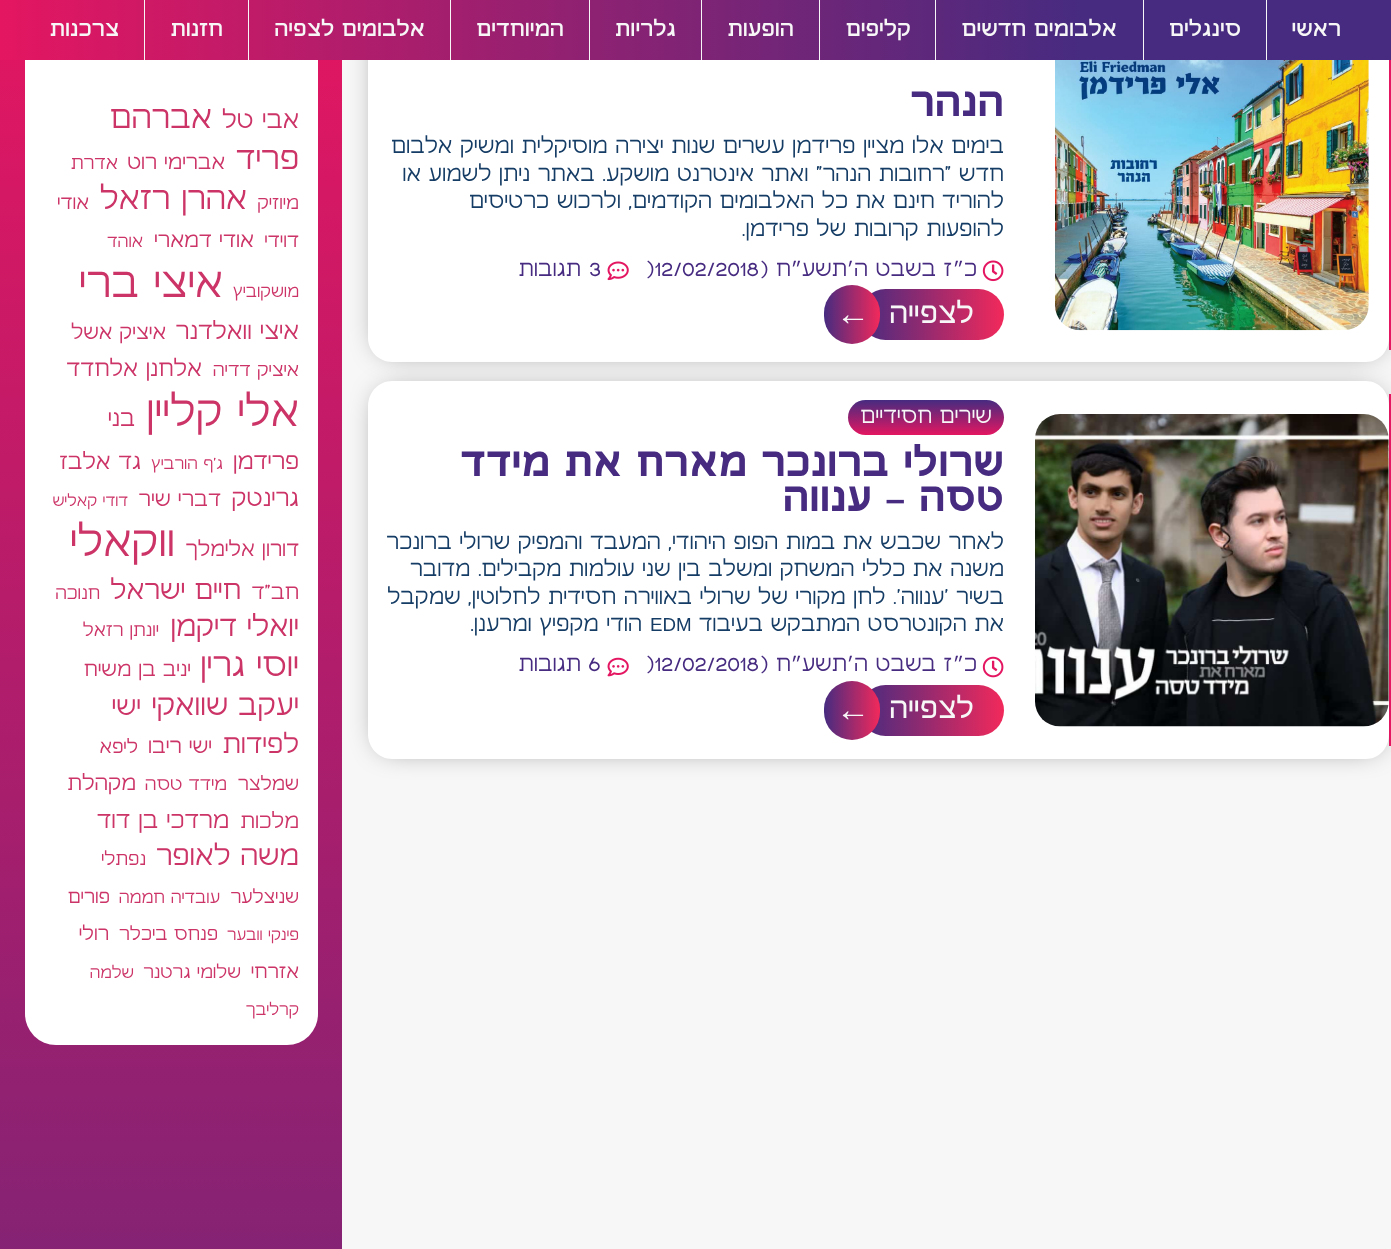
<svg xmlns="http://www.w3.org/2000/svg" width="1391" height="1249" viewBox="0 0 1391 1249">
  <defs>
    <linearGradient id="g1" gradientUnits="userSpaceOnUse" x1="171" y1="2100" x2="171" y2="-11"><stop offset="0" stop-color="rgb(70,43,128)"/><stop offset="1" stop-color="rgb(228,22,97)"/></linearGradient>
    <linearGradient id="g2" gradientUnits="userSpaceOnUse" x1="0" y1="30" x2="1391" y2="30"><stop offset="0" stop-color="rgb(228,22,97)"/><stop offset="0.78" stop-color="rgb(70,43,128)"/></linearGradient>
    <linearGradient id="g3" gradientUnits="userSpaceOnUse" x1="860" y1="314" x2="1004" y2="314"><stop offset="0" stop-color="rgb(70,43,128)"/><stop offset="1" stop-color="rgb(242,41,91)"/></linearGradient>
    <linearGradient id="g4" gradientUnits="userSpaceOnUse" x1="824" y1="314" x2="880" y2="314"><stop offset="0" stop-color="rgb(70,43,128)"/><stop offset="1" stop-color="rgb(242,41,91)"/></linearGradient>
    <linearGradient id="g5" gradientUnits="userSpaceOnUse" x1="926" y1="400" x2="926" y2="435"><stop offset="0" stop-color="rgb(70,43,128)"/><stop offset="1" stop-color="rgb(228,22,97)"/></linearGradient>
    <linearGradient id="g6" gradientUnits="userSpaceOnUse" x1="860" y1="711" x2="1004" y2="711"><stop offset="0" stop-color="rgb(70,43,128)"/><stop offset="1" stop-color="rgb(242,41,91)"/></linearGradient>
    <linearGradient id="g7" gradientUnits="userSpaceOnUse" x1="824" y1="711" x2="880" y2="711"><stop offset="0" stop-color="rgb(70,43,128)"/><stop offset="1" stop-color="rgb(242,41,91)"/></linearGradient>
  </defs>
  <rect width="100%" height="100%" fill="rgb(247,247,247)"/>
  <rect x="379" y="-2" width="1001" height="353" rx="14" fill="rgba(0,0,0,0.5)" filter="blur(14px)"/>
  <path d="M392-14H1366C1379-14 1389-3 1389 11V338C1389 351 1379 362 1366 362H392C379 362 368 351 368 338V11C368-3 379-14 392-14Z" fill="rgb(255,255,255)"/>
  <rect x="379" y="393" width="1001" height="355" rx="14" fill="rgba(0,0,0,0.5)" filter="blur(14px)"/>
  <path d="M31-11H311C329-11 342 2 342 18V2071C342 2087 329 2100 311 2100H31C14 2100 0 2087 0 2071V18C0 2 14-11 31-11Z" fill="url(#g1)"/>
  <rect x="25" y="14" width="293" height="1031" rx="31" fill="rgb(255,255,255)"/>
  <rect x="0" y="0" width="1391" height="60" fill="url(#g2)"/>
  <text x="1341" y="36" font-family="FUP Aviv" font-size="18.75" font-weight="600" direction="rtl" fill="rgb(247,247,247)">ראשי</text>
  <rect x="1266" y="0" width="1" height="60" fill="rgb(247,247,247)"/>
  <text x="1241" y="36" font-family="FUP Aviv" font-size="18.75" font-weight="600" direction="rtl" fill="rgb(247,247,247)">סינגלים</text>
  <rect x="1143" y="0" width="1" height="60" fill="rgb(247,247,247)"/>
  <text x="1117" y="36" font-family="FUP Aviv" font-size="18.75" font-weight="600" direction="rtl" fill="rgb(247,247,247)">אלבומים חדשים</text>
  <rect x="935" y="0" width="1" height="60" fill="rgb(247,247,247)"/>
  <text x="911" y="36" font-family="FUP Aviv" font-size="18.75" font-weight="600" direction="rtl" fill="rgb(247,247,247)">קליפים</text>
  <rect x="819" y="0" width="1" height="60" fill="rgb(247,247,247)"/>
  <text x="794" y="36" font-family="FUP Aviv" font-size="18.75" font-weight="600" direction="rtl" fill="rgb(247,247,247)">הופעות</text>
  <rect x="701" y="0" width="1" height="60" fill="rgb(247,247,247)"/>
  <text x="676" y="36" font-family="FUP Aviv" font-size="18.75" font-weight="600" direction="rtl" fill="rgb(247,247,247)">גלריות</text>
  <rect x="589" y="0" width="1" height="60" fill="rgb(247,247,247)"/>
  <text x="564" y="36" font-family="FUP Aviv" font-size="18.75" font-weight="600" direction="rtl" fill="rgb(247,247,247)">המיוחדים</text>
  <rect x="450" y="0" width="1" height="60" fill="rgb(247,247,247)"/>
  <text x="425" y="36" font-family="FUP Aviv" font-size="18.75" font-weight="600" direction="rtl" fill="rgb(247,247,247)">אלבומים לצפיה</text>
  <rect x="248" y="0" width="1" height="60" fill="rgb(247,247,247)"/>
  <text x="223" y="36" font-family="FUP Aviv" font-size="18.75" font-weight="600" direction="rtl" fill="rgb(247,247,247)">חזנות</text>
  <rect x="144" y="0" width="1" height="60" fill="rgb(247,247,247)"/>
  <text x="119" y="36" font-family="FUP Aviv" font-size="18.75" font-weight="600" direction="rtl" fill="rgb(247,247,247)">צרכנות</text>
  <rect x="1389" y="60" width="2" height="290" fill="rgb(228,22,97)"/>
  <image x="1055" y="60" width="314" height="271" href="pic1.png"/>
  <text x="1004" y="116" font-family="FUP Aviv" font-size="35" font-weight="bold" direction="rtl" fill="rgb(70,43,128)">הנהר</text>
  <g font-family="FUP Aviv" font-size="18.75" direction="rtl" fill="rgb(21,60,101)">
    <text>
      <tspan x="1004" y="153">בימים אלו מציין פרידמן עשרים שנות יצירה מוסיקלית ומשיק אלבום</tspan>
      <tspan x="1004" y="181">חדש "רחובות הנהר" ואתר אינטרנט מושקע. באתר ניתן לשמוע או</tspan>
      <tspan x="1004" y="208">להוריד חינם את כל האלבומים הקודמים, ולרכוש כרטיסים</tspan>
      <tspan x="1004" y="236">להופעות קרובות של פרידמן.</tspan>
    </text>
  </g>
  <image x="982" y="260" width="22" height="22" href="pic2.png"/>
  <text x="977" y="276" font-family="FUP Aviv" font-size="18.75" direction="rtl" fill="rgb(70,43,128)">כ</text>
  <text x="964" y="276" font-family="Liberation Sans" font-size="18.75" direction="rtl" fill="rgb(70,43,128)">״</text>
  <text x="952" y="276" font-family="FUP Aviv" font-size="18.75" direction="rtl" fill="rgb(70,43,128)">ז בשבט ה</text>
  <text x="854" y="276" font-family="Liberation Sans" font-size="18.75" direction="rtl" fill="rgb(70,43,128)">׳</text>
  <text x="847" y="276" font-family="FUP Aviv" font-size="18.75" direction="rtl" fill="rgb(70,43,128)">תשע</text>
  <text x="802" y="276" font-family="Liberation Sans" font-size="18.75" direction="rtl" fill="rgb(70,43,128)">״</text>
  <text x="791" y="276" font-family="FUP Aviv" font-size="18.75" direction="rtl" fill="rgb(70,43,128)">ח (</text>
  <text x="648" y="276" font-family="FUP Aviv" font-size="18.75" fill="rgb(70,43,128)">)12/02/2018</text>
  <image x="607" y="261" width="22" height="20" href="pic3.png"/>
  <text x="589" y="276" font-family="FUP Aviv" font-size="18.75" fill="rgb(70,43,128)">3</text>
  <text x="581" y="276" font-family="FUP Aviv" font-size="18.75" direction="rtl" fill="rgb(70,43,128)">תגובות</text>
  <rect x="860" y="289" width="144" height="51" rx="25.5" fill="url(#g3)"/>
  <text x="974" y="323" font-family="FUP Aviv" font-size="25" font-weight="500" direction="rtl" fill="rgb(247,247,247)">לצפייה</text>
  <rect x="824" y="285" width="56" height="59" rx="28" fill="url(#g4)"/>
  <text x="836" y="325" font-family="Liberation Sans" font-size="34" letter-spacing="-3" fill="rgb(247,247,247)">←</text>
  <path d="M392 381H1366C1379 381 1389 392 1389 406V734C1389 748 1379 759 1366 759H392C379 759 368 748 368 734V406C368 392 379 381 392 381Z" fill="rgb(255,255,255)"/>
  <rect x="1389" y="394" width="2" height="352" fill="rgb(228,22,97)"/>
  <image x="1035" y="414" width="354" height="313" href="pic4.png"/>
  <rect x="848" y="400" width="156" height="35" rx="17.5" fill="url(#g5)"/>
  <text x="992" y="423" font-family="FUP Aviv" font-size="18.75" direction="rtl" fill="rgb(247,247,247)">שירים חסידיים</text>
  <g font-family="FUP Aviv" font-size="35" font-weight="bold" direction="rtl" fill="rgb(70,43,128)">
    <text>
      <tspan x="1004" y="476">שרולי ברונכר מארח את מידד</tspan>
      <tspan x="1004" y="511">טסה</tspan>
    </text>
  </g>
  <text x="905" y="511" font-family="Liberation Sans" font-size="35" font-weight="bold" direction="rtl" fill="rgb(70,43,128)">–</text>
  <text x="872" y="511" font-family="FUP Aviv" font-size="35" font-weight="bold" direction="rtl" fill="rgb(70,43,128)">ענווה</text>
  <g font-family="FUP Aviv" font-size="18.75" direction="rtl" fill="rgb(21,60,101)">
    <text>
      <tspan x="1004" y="549">לאחר שכבש את במות הפופ היהודי, המעבד והמפיק שרולי ברונכר</tspan>
      <tspan x="1004" y="576">משנה את כללי המשחק ומשלב בין שני עולמות מקבילים. מדובר</tspan>
      <tspan x="1004" y="604">בשיר 'ענווה'. לחן מקורי של שרולי באווירה חסידית לחלוטין, שמקבל</tspan>
      <tspan x="1004" y="631">את הקונטרסט המתבקש בעיבוד</tspan>
    </text>
  </g>
  <text x="650" y="631" font-family="Liberation Sans" font-size="18.75" fill="rgb(21,60,101)">EDM</text>
  <text x="642" y="631" font-family="FUP Aviv" font-size="18.75" direction="rtl" fill="rgb(21,60,101)">הודי מקפיץ ומרענן.</text>
  <image x="982" y="656" width="22" height="22" href="pic5.png"/>
  <text x="977" y="671" font-family="FUP Aviv" font-size="18.75" direction="rtl" fill="rgb(70,43,128)">כ</text>
  <text x="964" y="671" font-family="Liberation Sans" font-size="18.75" direction="rtl" fill="rgb(70,43,128)">״</text>
  <text x="952" y="671" font-family="FUP Aviv" font-size="18.75" direction="rtl" fill="rgb(70,43,128)">ז בשבט ה</text>
  <text x="854" y="671" font-family="Liberation Sans" font-size="18.75" direction="rtl" fill="rgb(70,43,128)">׳</text>
  <text x="847" y="671" font-family="FUP Aviv" font-size="18.75" direction="rtl" fill="rgb(70,43,128)">תשע</text>
  <text x="802" y="671" font-family="Liberation Sans" font-size="18.75" direction="rtl" fill="rgb(70,43,128)">״</text>
  <text x="791" y="671" font-family="FUP Aviv" font-size="18.75" direction="rtl" fill="rgb(70,43,128)">ח (</text>
  <text x="648" y="671" font-family="FUP Aviv" font-size="18.75" fill="rgb(70,43,128)">)12/02/2018</text>
  <image x="607" y="657" width="22" height="20" href="pic6.png"/>
  <text x="588" y="671" font-family="FUP Aviv" font-size="18.75" fill="rgb(70,43,128)">6</text>
  <text x="581" y="671" font-family="FUP Aviv" font-size="18.75" direction="rtl" fill="rgb(70,43,128)">תגובות</text>
  <rect x="860" y="685" width="144" height="51" rx="25.5" fill="url(#g6)"/>
  <text x="974" y="718" font-family="FUP Aviv" font-size="25" font-weight="500" direction="rtl" fill="rgb(247,247,247)">לצפייה</text>
  <rect x="824" y="681" width="56" height="59" rx="28" fill="url(#g7)"/>
  <text x="836" y="721" font-family="Liberation Sans" font-size="34" letter-spacing="-3" fill="rgb(247,247,247)">←</text>
  <text x="299" y="128" font-family="FUP Aviv" font-size="21" direction="rtl" fill="rgb(204,51,102)">אבי טל</text>
  <g font-family="FUP Aviv" font-size="27" direction="rtl" fill="rgb(204,51,102)">
    <text x="212" y="128">אברהם</text>
    <text x="299" y="169">פריד</text>
  </g>
  <text x="225" y="169" font-family="FUP Aviv" font-size="17.5" direction="rtl" fill="rgb(204,51,102)">אברימי רוט</text>
  <g font-family="FUP Aviv" font-size="15.75" direction="rtl" fill="rgb(204,51,102)">
    <text x="118" y="169">אדרת</text>
    <text x="299" y="209">מיוזיק</text>
  </g>
  <text x="247" y="209" font-family="FUP Aviv" font-size="27" direction="rtl" fill="rgb(204,51,102)">אהרן רזאל</text>
  <g font-family="FUP Aviv" font-size="16.5" direction="rtl" fill="rgb(204,51,102)">
    <text x="89" y="209">אודי</text>
    <text x="299" y="247">דוידי</text>
  </g>
  <text x="254" y="247" font-family="FUP Aviv" font-size="18" direction="rtl" fill="rgb(204,51,102)">אודי דמארי</text>
  <g font-family="FUP Aviv" font-size="14.5" direction="rtl" fill="rgb(204,51,102)">
    <text x="143" y="247">אוהד</text>
    <text x="299" y="297">מושקוביץ</text>
  </g>
  <text x="223" y="297" font-family="FUP Aviv" font-size="36" direction="rtl" fill="rgb(204,51,102)">איצי ברי</text>
  <text x="299" y="339" font-family="FUP Aviv" font-size="20.25" direction="rtl" fill="rgb(204,51,102)">איצי וואלדנר</text>
  <text x="166" y="339" font-family="FUP Aviv" font-size="17.5" direction="rtl" fill="rgb(204,51,102)">איציק אשל</text>
  <text x="299" y="376" font-family="FUP Aviv" font-size="15.75" direction="rtl" fill="rgb(204,51,102)">איציק דדיה</text>
  <text x="202" y="376" font-family="FUP Aviv" font-size="19.25" direction="rtl" fill="rgb(204,51,102)">אלחנן אלחדד</text>
  <text x="299" y="426" font-family="FUP Aviv" font-size="36.5" direction="rtl" fill="rgb(204,51,102)">אלי קליין</text>
  <g font-family="FUP Aviv" font-size="19.5" direction="rtl" fill="rgb(204,51,102)">
    <text x="135" y="426">בני</text>
    <text x="299" y="469">פרידמן</text>
  </g>
  <text x="223" y="469" font-family="FUP Aviv" font-size="14" direction="rtl" fill="rgb(204,51,102)">ג'ף הורביץ</text>
  <text x="141" y="469" font-family="FUP Aviv" font-size="19" direction="rtl" fill="rgb(204,51,102)">גד אלבז</text>
  <text x="299" y="506" font-family="FUP Aviv" font-size="20.25" direction="rtl" fill="rgb(204,51,102)">גרינטק</text>
  <text x="221" y="506" font-family="FUP Aviv" font-size="18" direction="rtl" fill="rgb(204,51,102)">דברי שיר</text>
  <text x="128" y="506" font-family="FUP Aviv" font-size="13.5" direction="rtl" fill="rgb(204,51,102)">דודי קאליש</text>
  <text x="299" y="556" font-family="FUP Aviv" font-size="17.75" direction="rtl" fill="rgb(204,51,102)">דורון אלימלך</text>
  <text x="175" y="556" font-family="FUP Aviv" font-size="36.5" direction="rtl" fill="rgb(204,51,102)">ווקאלי</text>
  <text x="299" y="599" font-family="FUP Aviv" font-size="18" direction="rtl" fill="rgb(204,51,102)">חב"ד</text>
  <text x="241" y="599" font-family="FUP Aviv" font-size="23" direction="rtl" fill="rgb(204,51,102)">חיים ישראל</text>
  <text x="100" y="599" font-family="FUP Aviv" font-size="15.5" direction="rtl" fill="rgb(204,51,102)">חנוכה</text>
  <text x="299" y="636" font-family="FUP Aviv" font-size="24.5" direction="rtl" fill="rgb(204,51,102)">יואלי דיקמן</text>
  <text x="159" y="636" font-family="FUP Aviv" font-size="15.5" direction="rtl" fill="rgb(204,51,102)">יונתן רזאל</text>
  <text x="299" y="676" font-family="FUP Aviv" font-size="28" direction="rtl" fill="rgb(204,51,102)">יוסי גרין</text>
  <text x="191" y="676" font-family="FUP Aviv" font-size="17.5" direction="rtl" fill="rgb(204,51,102)">יניב בן משיח</text>
  <text x="299" y="715" font-family="FUP Aviv" font-size="25" direction="rtl" fill="rgb(204,51,102)">יעקב שוואקי</text>
  <g font-family="FUP Aviv" font-size="22.5" direction="rtl" fill="rgb(204,51,102)">
    <text x="141" y="715">ישי</text>
    <text x="299" y="753">לפידות</text>
  </g>
  <text x="212" y="753" font-family="FUP Aviv" font-size="17.75" direction="rtl" fill="rgb(204,51,102)">ישי ריבו</text>
  <g font-family="FUP Aviv" font-size="16" direction="rtl" fill="rgb(204,51,102)">
    <text x="138" y="753">ליפא</text>
    <text x="299" y="790">שמלצר</text>
  </g>
  <text x="227" y="790" font-family="FUP Aviv" font-size="15.5" direction="rtl" fill="rgb(204,51,102)">מידד טסה</text>
  <g font-family="FUP Aviv" font-size="18" direction="rtl" fill="rgb(204,51,102)">
    <text x="136" y="790">מקהלת</text>
    <text x="299" y="828">מלכות</text>
  </g>
  <text x="229" y="828" font-family="FUP Aviv" font-size="20" direction="rtl" fill="rgb(204,51,102)">מרדכי בן דוד</text>
  <text x="299" y="865" font-family="FUP Aviv" font-size="24" direction="rtl" fill="rgb(204,51,102)">משה לאופר</text>
  <g font-family="FUP Aviv" font-size="15.75" direction="rtl" fill="rgb(204,51,102)">
    <text x="146" y="865">נפתלי</text>
    <text x="299" y="903">שניצלער</text>
  </g>
  <text x="220" y="903" font-family="FUP Aviv" font-size="14.5" direction="rtl" fill="rgb(204,51,102)">עובדיה חממה</text>
  <text x="110" y="903" font-family="FUP Aviv" font-size="16" direction="rtl" fill="rgb(204,51,102)">פורים</text>
  <text x="299" y="940" font-family="FUP Aviv" font-size="13.5" direction="rtl" fill="rgb(204,51,102)">פינקי וובער</text>
  <text x="218" y="940" font-family="FUP Aviv" font-size="15.75" direction="rtl" fill="rgb(204,51,102)">פנחס ביכלר</text>
  <g font-family="FUP Aviv" font-size="16.5" direction="rtl" fill="rgb(204,51,102)">
    <text x="109" y="940">רולי</text>
    <text x="299" y="978">אזרחי</text>
  </g>
  <text x="241" y="978" font-family="FUP Aviv" font-size="15.5" direction="rtl" fill="rgb(204,51,102)">שלומי גרטנר</text>
  <g font-family="FUP Aviv" font-size="14" direction="rtl" fill="rgb(204,51,102)">
    <text x="134" y="978">שלמה</text>
    <text x="299" y="1015">קרליבך</text>
  </g>
</svg>
